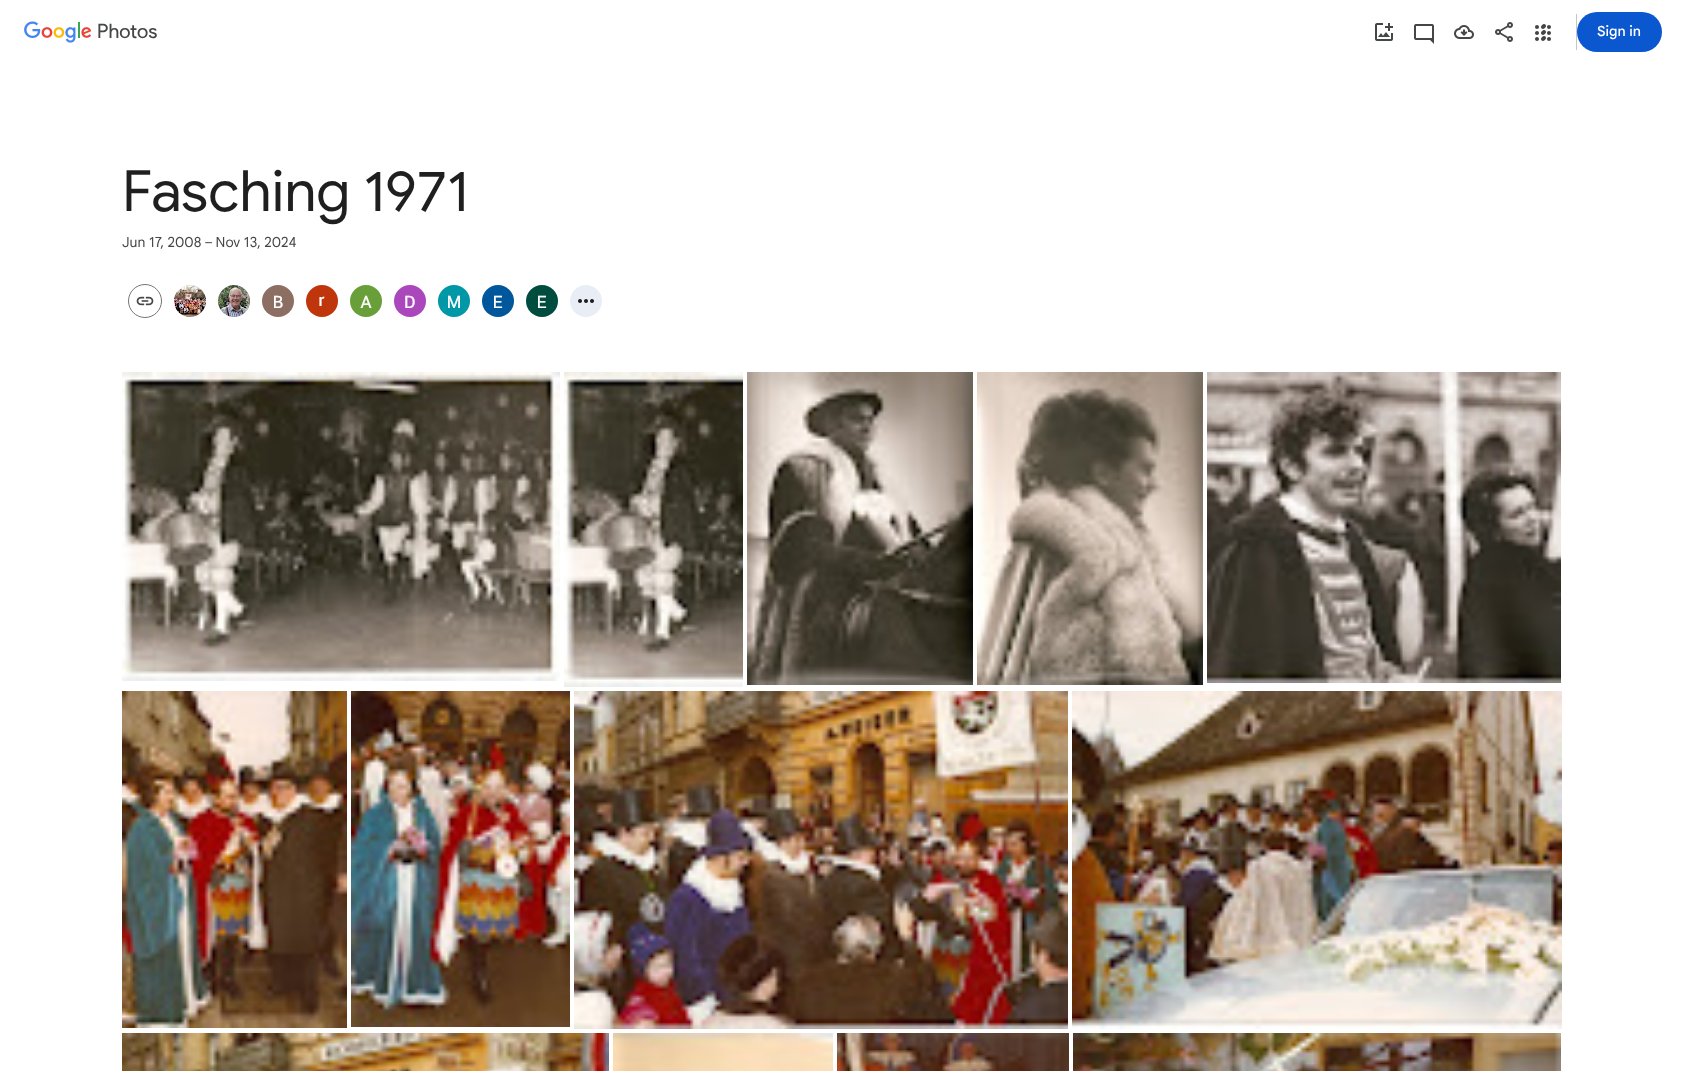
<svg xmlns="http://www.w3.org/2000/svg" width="1698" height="1071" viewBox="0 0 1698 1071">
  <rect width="100%" height="100%" fill="rgb(255,255,255)"/>
  <image x="24" y="21" width="68" height="22" href="pic1.png"/>
  <text x="97" y="38" font-family="Product Sans" font-size="20" fill="rgb(68,71,70)">Photos</text>
  <image x="1375" y="23" width="18" height="18" href="pic2.png"/>
  <image x="1414" y="24" width="20" height="20" href="pic3.png"/>
  <image x="1454" y="25" width="20" height="14" href="pic4.png"/>
  <image x="1495" y="22" width="18" height="20" href="pic5.png"/>
  <image x="1542" y="24" width="4" height="16" href="pic6.png"/>
  <rect x="1576" y="14" width="1" height="36" fill="rgb(196,199,197)"/>
  <text x="122" y="211" font-family="Google Sans" font-size="57" fill="rgb(31,31,31)">Fasching 1971</text>
  <text x="122" y="247" font-family="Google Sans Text" font-size="14" fill="rgb(68,71,70)">Jun 17, 2008 – Nov 13, 2024</text>
  <circle cx="145" cy="301" r="16.5" fill="none" stroke="rgb(116,119,117)"/>
  <image x="136" y="296" width="18" height="10" href="pic7.png"/>
  <image x="174" y="285" width="32" height="32" href="pic8.png"/>
  <image x="218" y="285" width="32" height="32" href="pic9.png"/>
  <image x="262" y="285" width="32" height="32" href="pic10.png"/>
  <image x="306" y="285" width="32" height="32" href="pic11.png"/>
  <image x="350" y="285" width="32" height="32" href="pic12.png"/>
  <image x="394" y="285" width="32" height="32" href="pic13.png"/>
  <image x="438" y="285" width="32" height="32" href="pic14.png"/>
  <image x="482" y="285" width="32" height="32" href="pic15.png"/>
  <image x="526" y="285" width="32" height="32" href="pic16.png"/>
  <circle cx="586" cy="301" r="16" fill="rgb(233,238,246)"/>
  <image x="578" y="299" width="16" height="4" href="pic17.png"/>
  <image x="122" y="372" width="438" height="309" href="pic18.png"/>
  <image x="564" y="372" width="179" height="315" href="pic19.png"/>
  <image x="747" y="372" width="226" height="313" href="pic20.png"/>
  <image x="977" y="372" width="226" height="313" href="pic21.png"/>
  <image x="1207" y="372" width="354" height="311" href="pic22.png"/>
  <image x="122" y="691" width="225" height="337" href="pic23.png"/>
  <image x="351" y="691" width="219" height="336" href="pic24.png"/>
  <image x="574" y="691" width="494" height="338" href="pic25.png"/>
  <image x="1072" y="691" width="490" height="338" href="pic26.png"/>
  <image x="122" y="1033" width="487" height="38" href="pic27.png"/>
  <image x="613" y="1033" width="220" height="38" href="pic28.png"/>
  <image x="837" y="1033" width="232" height="38" href="pic29.png"/>
  <image x="1073" y="1033" width="488" height="38" href="pic30.png"/>
  <image x="1535" y="25" width="16" height="16" href="pic31.png"/>
  <rect x="1577" y="12" width="85" height="40" rx="20" fill="rgb(11,87,208)"/>
  <text x="1597" y="36" font-family="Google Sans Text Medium" font-size="14" font-weight="500" fill="rgb(255,255,255)">Sign in</text>
</svg>
